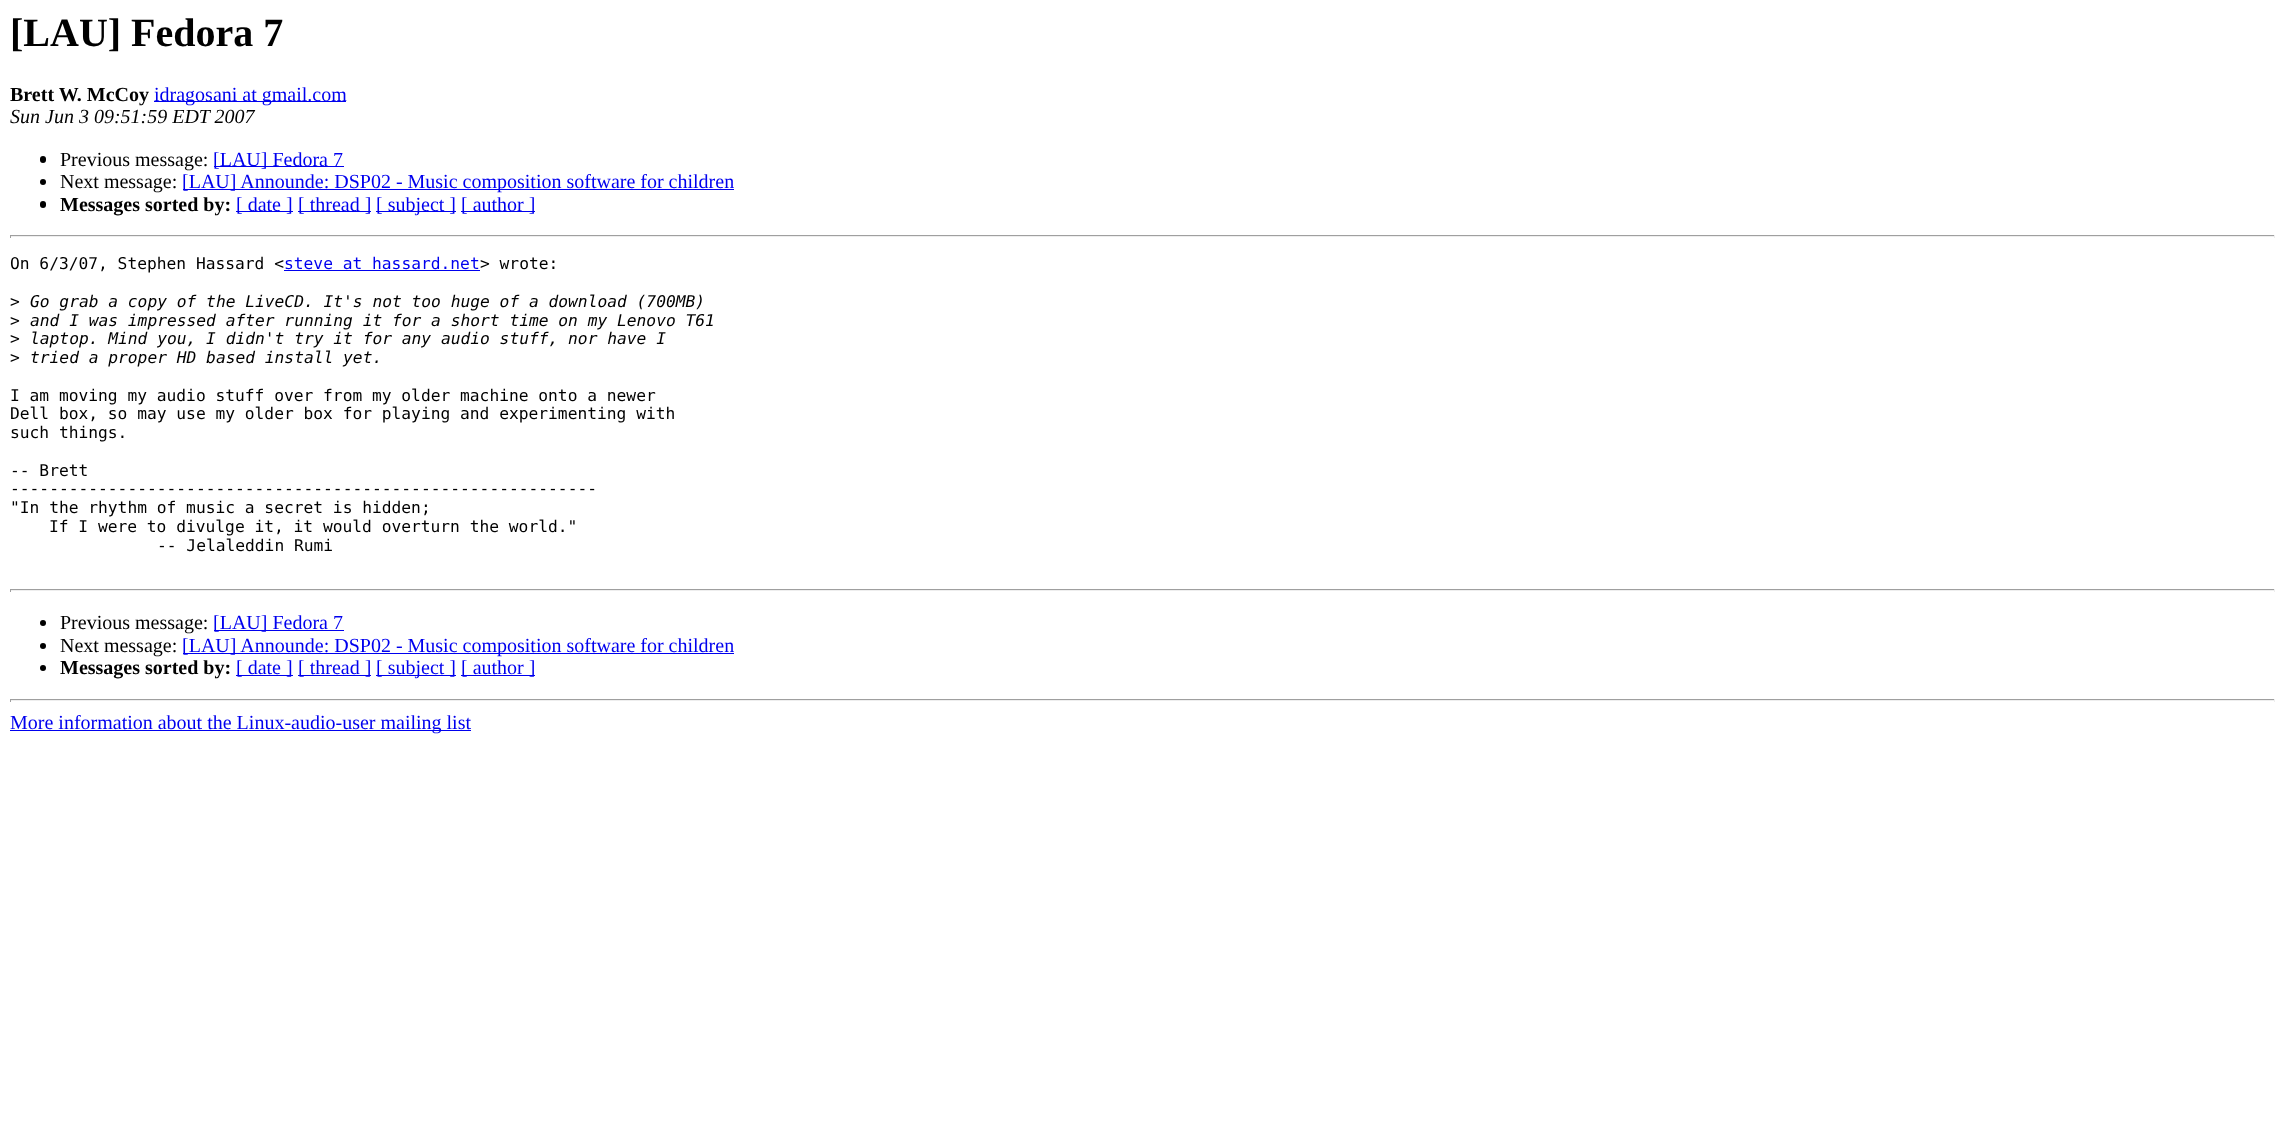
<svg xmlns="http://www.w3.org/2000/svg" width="2284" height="1146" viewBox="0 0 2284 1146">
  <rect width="100%" height="100%" fill="rgb(255,255,255)"/>
  <text x="10" y="46" font-family="Liberation Serif" font-size="40" font-weight="bold" fill="rgb(0,0,0)">[LAU] Fedora 7</text>
  <text x="10" y="101" font-family="Liberation Serif" font-size="20" font-weight="bold" fill="rgb(0,0,0)">Brett W. McCoy</text>
  <rect x="154" y="101" width="192" height="1" fill="rgb(0,0,238)"/>
  <text x="154" y="101" font-family="Liberation Serif" font-size="20" fill="rgb(0,0,238)">idragosani at gmail.com</text>
  <text x="10" y="123" font-family="Liberation Serif" font-size="20" font-style="italic" fill="rgb(0,0,0)">Sun Jun 3 09:51:59 EDT 2007</text>
  <rect x="40" y="156" width="6" height="7" rx="3" fill="rgb(0,0,0)"/>
  <text x="60" y="166" font-family="Liberation Serif" font-size="20" fill="rgb(0,0,0)">Previous message:</text>
  <rect x="214" y="166" width="130" height="1" fill="rgb(0,0,238)"/>
  <text x="213" y="166" font-family="Liberation Serif" font-size="20" fill="rgb(0,0,238)">[LAU] Fedora 7</text>
  <circle cx="43" cy="182" r="3" fill="rgb(0,0,0)"/>
  <text x="60" y="188" font-family="Liberation Serif" font-size="20" fill="rgb(0,0,0)">Next message:</text>
  <rect x="183" y="189" width="551" height="1" fill="rgb(0,0,238)"/>
  <text x="182" y="188" font-family="Liberation Serif" font-size="20" fill="rgb(0,0,238)">[LAU] Announde: DSP02 - Music composition software for children</text>
  <rect x="40" y="201" width="6" height="7" rx="3" fill="rgb(0,0,0)"/>
  <text x="60" y="211" font-family="Liberation Serif" font-size="20" font-weight="bold" fill="rgb(0,0,0)">Messages sorted by:</text>
  <rect x="236" y="211" width="57" height="1" fill="rgb(0,0,238)"/>
  <text x="236" y="211" font-family="Liberation Serif" font-size="20" fill="rgb(0,0,238)">[ date ]</text>
  <rect x="298" y="211" width="73" height="1" fill="rgb(0,0,238)"/>
  <text x="298" y="211" font-family="Liberation Serif" font-size="20" fill="rgb(0,0,238)">[ thread ]</text>
  <rect x="376" y="211" width="80" height="1" fill="rgb(0,0,238)"/>
  <text x="376" y="211" font-family="Liberation Serif" font-size="20" fill="rgb(0,0,238)">[ subject ]</text>
  <rect x="461" y="211" width="74" height="1" fill="rgb(0,0,238)"/>
  <text x="461" y="211" font-family="Liberation Serif" font-size="20" fill="rgb(0,0,238)">[ author ]</text>
  <rect x="10" y="235" width="2265" height="1" fill="rgb(159,159,159)"/>
  <rect x="2274" y="235" width="1" height="3" fill="rgb(238,238,238)"/>
  <rect x="10" y="236" width="2265" height="1" fill="rgb(238,238,238)"/>
  <rect x="10" y="235" width="1" height="3" fill="rgb(159,159,159)"/>
  <text x="10" y="269" font-family="DejaVu Sans Mono" font-size="16.25" fill="rgb(0,0,0)">On 6/3/07, Stephen Hassard &lt;</text>
  <text x="284" y="269" font-family="DejaVu Sans Mono" font-size="16.25" fill="rgb(0,0,238)">steve at hassard.net</text>
  <rect x="284" y="270" width="196" height="1" fill="rgb(0,0,238)"/>
  <g font-family="DejaVu Sans Mono" font-size="16.25" fill="rgb(0,0,0)">
    <text x="480" y="269">&gt; wrote:</text>
    <text x="10" y="307">&gt;</text>
  </g>
  <text x="30" y="307" font-family="DejaVu Sans Mono" font-size="16.25" font-style="italic" fill="rgb(0,0,0)">Go grab a copy of the LiveCD. It's not too huge of a download (700MB)</text>
  <text x="10" y="326" font-family="DejaVu Sans Mono" font-size="16.25" fill="rgb(0,0,0)">&gt;</text>
  <text x="30" y="326" font-family="DejaVu Sans Mono" font-size="16.25" font-style="italic" fill="rgb(0,0,0)">and I was impressed after running it for a short time on my Lenovo T61</text>
  <text x="10" y="344" font-family="DejaVu Sans Mono" font-size="16.25" fill="rgb(0,0,0)">&gt;</text>
  <text x="30" y="344" font-family="DejaVu Sans Mono" font-size="16.25" font-style="italic" fill="rgb(0,0,0)">laptop. Mind you, I didn't try it for any audio stuff, nor have I</text>
  <text x="10" y="363" font-family="DejaVu Sans Mono" font-size="16.25" fill="rgb(0,0,0)">&gt;</text>
  <text x="30" y="363" font-family="DejaVu Sans Mono" font-size="16.25" font-style="italic" fill="rgb(0,0,0)">tried a proper HD based install yet.</text>
  <g font-family="DejaVu Sans Mono" font-size="16.25" fill="rgb(0,0,0)">
    <text>
      <tspan x="10" y="401">I am moving my audio stuff over from my older machine onto a newer</tspan>
      <tspan x="10" y="419">Dell box, so may use my older box for playing and experimenting with</tspan>
      <tspan x="10" y="438">such things.</tspan>
    </text>
    <text>
      <tspan x="10" y="476">-- Brett</tspan>
      <tspan x="10" y="494">------------------------------------------------------------</tspan>
      <tspan x="10" y="513">"In the rhythm of music a secret is hidden;</tspan>
    </text>
    <text x="49" y="532">If I were to divulge it, it would overturn the world."</text>
    <text x="157" y="551">-- Jelaleddin Rumi</text>
  </g>
  <rect x="10" y="589" width="2265" height="1" fill="rgb(159,159,159)"/>
  <rect x="2274" y="589" width="1" height="3" fill="rgb(238,238,238)"/>
  <rect x="10" y="590" width="2265" height="1" fill="rgb(238,238,238)"/>
  <rect x="10" y="589" width="1" height="3" fill="rgb(159,159,159)"/>
  <circle cx="43" cy="623" r="3" fill="rgb(0,0,0)"/>
  <text x="60" y="629" font-family="Liberation Serif" font-size="20" fill="rgb(0,0,0)">Previous message:</text>
  <rect x="214" y="630" width="130" height="1" fill="rgb(0,0,238)"/>
  <text x="213" y="629" font-family="Liberation Serif" font-size="20" fill="rgb(0,0,238)">[LAU] Fedora 7</text>
  <circle cx="43" cy="646" r="3" fill="rgb(0,0,0)"/>
  <text x="60" y="652" font-family="Liberation Serif" font-size="20" fill="rgb(0,0,0)">Next message:</text>
  <rect x="183" y="653" width="551" height="1" fill="rgb(0,0,238)"/>
  <text x="182" y="652" font-family="Liberation Serif" font-size="20" fill="rgb(0,0,238)">[LAU] Announde: DSP02 - Music composition software for children</text>
  <circle cx="43" cy="668" r="3" fill="rgb(0,0,0)"/>
  <text x="60" y="674" font-family="Liberation Serif" font-size="20" font-weight="bold" fill="rgb(0,0,0)">Messages sorted by:</text>
  <rect x="236" y="675" width="57" height="1" fill="rgb(0,0,238)"/>
  <text x="236" y="674" font-family="Liberation Serif" font-size="20" fill="rgb(0,0,238)">[ date ]</text>
  <rect x="298" y="675" width="73" height="1" fill="rgb(0,0,238)"/>
  <text x="298" y="674" font-family="Liberation Serif" font-size="20" fill="rgb(0,0,238)">[ thread ]</text>
  <rect x="376" y="675" width="80" height="1" fill="rgb(0,0,238)"/>
  <text x="376" y="674" font-family="Liberation Serif" font-size="20" fill="rgb(0,0,238)">[ subject ]</text>
  <rect x="461" y="675" width="74" height="1" fill="rgb(0,0,238)"/>
  <text x="461" y="674" font-family="Liberation Serif" font-size="20" fill="rgb(0,0,238)">[ author ]</text>
  <rect x="10" y="699" width="2265" height="1" fill="rgb(159,159,159)"/>
  <rect x="2274" y="699" width="1" height="3" fill="rgb(238,238,238)"/>
  <rect x="10" y="700" width="2265" height="1" fill="rgb(238,238,238)"/>
  <rect x="10" y="699" width="1" height="3" fill="rgb(159,159,159)"/>
  <rect x="10" y="730" width="461" height="1" fill="rgb(0,0,238)"/>
  <text x="10" y="729" font-family="Liberation Serif" font-size="20" fill="rgb(0,0,238)">More information about the Linux-audio-user mailing list</text>
</svg>
